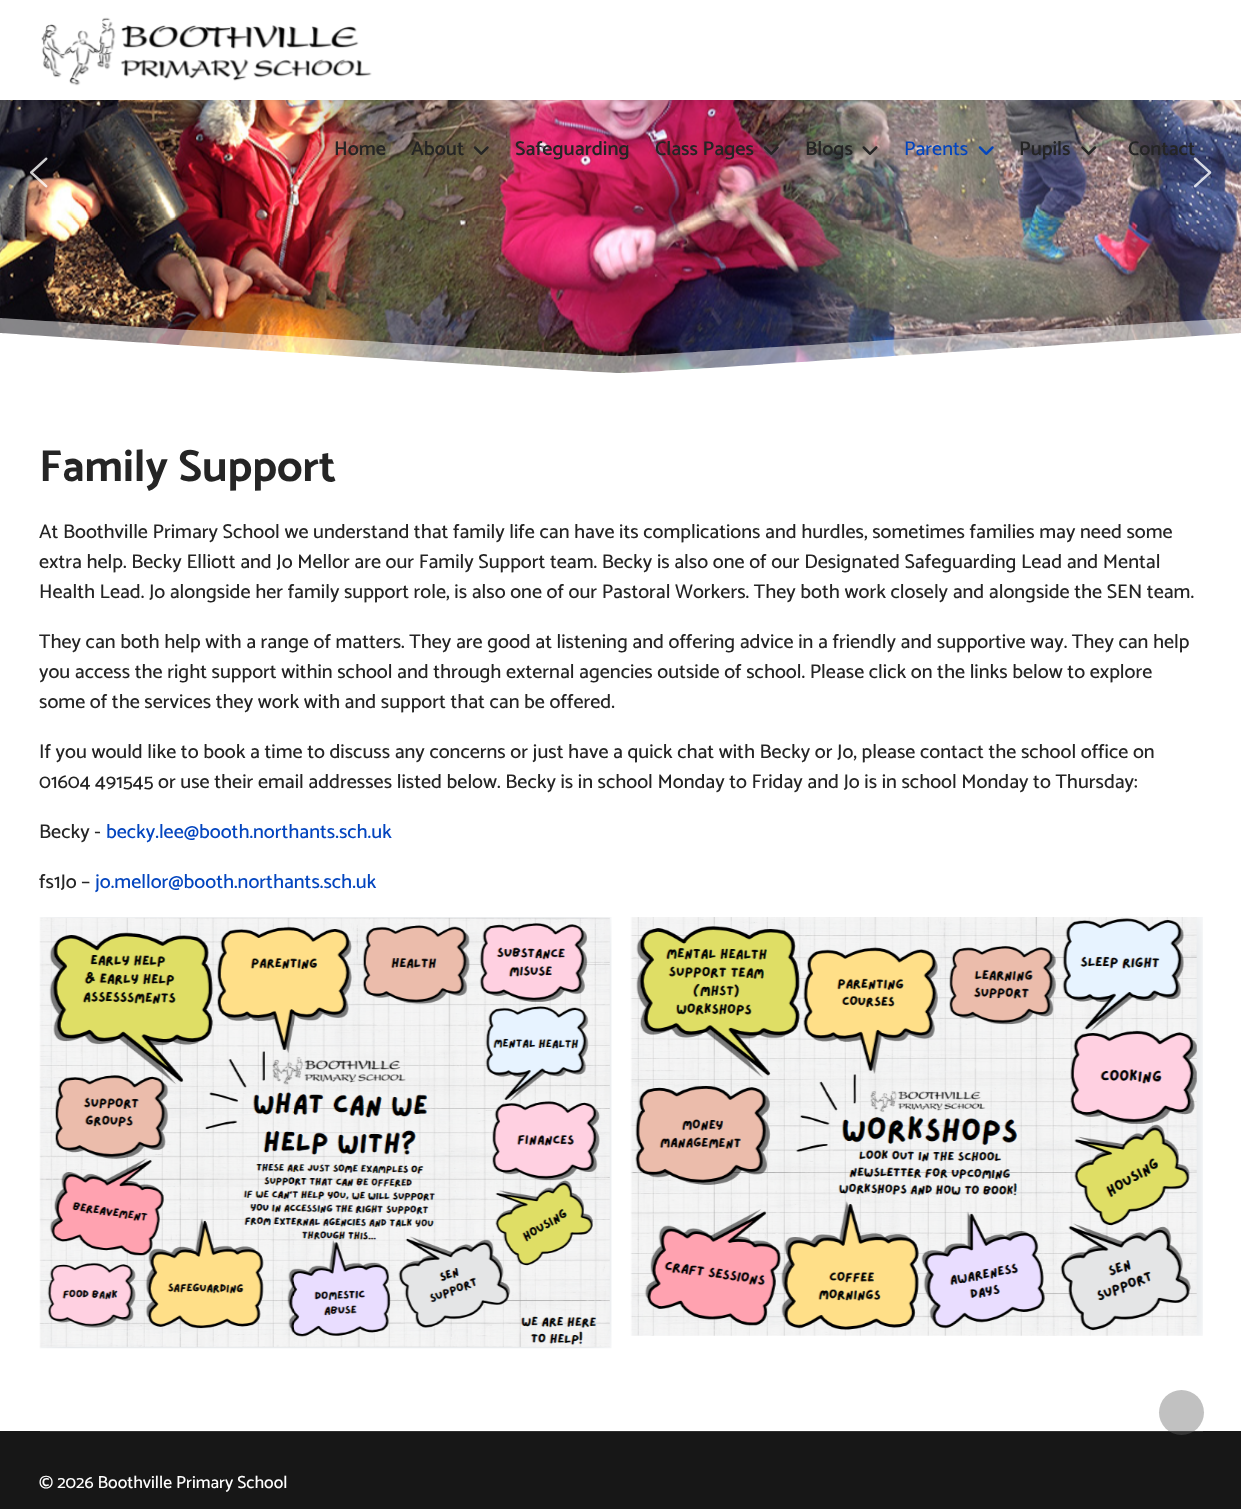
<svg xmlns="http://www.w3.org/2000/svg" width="1241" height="1509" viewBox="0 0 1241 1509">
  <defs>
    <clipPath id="clip1"><rect x="0" y="316" width="1241" height="63"/></clipPath>
  </defs>
  <rect width="100%" height="100%" fill="rgb(255,255,255)"/>
  <image x="0" y="100" width="1241" height="273" href="pic7.png"/>
  <rect x="0" y="0" width="1241" height="100" fill="rgba(0,0,0,0.1)" filter="blur(2.5px)"/>
  <rect x="0" y="0" width="1241" height="100" fill="rgb(255,255,255)"/>
  <image x="41" y="17" width="331" height="69" href="pic1.png"/>
  <g font-family="Catamaran" font-size="20" font-weight="600" fill="rgb(37,37,37)">
    <text x="334" y="155">Home</text>
    <text x="411" y="155">About</text>
  </g>
  <image x="473" y="146" width="16" height="9" href="pic2.png"/>
  <g font-family="Catamaran" font-size="20" font-weight="600" fill="rgb(37,37,37)">
    <text x="515" y="155">Safeguarding</text>
    <text x="655" y="155">Class Pages</text>
  </g>
  <image x="763" y="146" width="16" height="9" href="pic3.png"/>
  <text x="805" y="155" font-family="Catamaran" font-size="20" font-weight="600" fill="rgb(37,37,37)">Blogs</text>
  <image x="862" y="146" width="16" height="9" href="pic4.png"/>
  <text x="904" y="155" font-family="Catamaran" font-size="20" font-weight="500" fill="rgb(3,69,191)">Parents</text>
  <image x="978" y="146" width="16" height="9" href="pic5.png"/>
  <text x="1019" y="155" font-family="Catamaran" font-size="20" font-weight="600" fill="rgb(37,37,37)">Pupils</text>
  <image x="1081" y="146" width="16" height="9" href="pic6.png"/>
  <text x="1128" y="155" font-family="Catamaran" font-size="20" font-weight="600" fill="rgb(37,37,37)">Contact</text>
  <g clip-path="url(#clip1)">
    <path d="M1241 379V318C1225 318 646 356 621 356C595 356 0 318 0 318V380H1241Z" fill="rgba(255,255,255,0.5)"/>
    <path d="M1241 379V333C1241 333 646 373 621 373C595 373 0 333 0 333V380H1241Z" fill="rgb(255,255,255)"/>
  </g>
  <image x="30" y="157" width="18" height="31" href="pic8.png"/>
  <image x="1193" y="157" width="19" height="31" href="pic9.png"/>
  <text x="39" y="481" font-family="Catamaran" font-size="45" font-weight="bold" fill="rgb(37,37,37)">Family Support</text>
  <g font-family="Catamaran" font-size="20" font-weight="500" fill="rgb(37,37,37)">
    <text>
      <tspan x="39" y="538">At Boothville Primary School we understand that family life can have its complications and hurdles, sometimes families may need some</tspan>
      <tspan x="39" y="568">extra help. Becky Elliott and Jo Mellor are our Family Support team. Becky is also one of our Designated Safeguarding Lead and Mental</tspan>
      <tspan x="39" y="598">Health Lead. Jo alongside her family support role, is also one of our Pastoral Workers. They both work closely and alongside the SEN team.</tspan>
    </text>
    <text>
      <tspan x="39" y="648">They can both help with a range of matters. They are good at listening and offering advice in a friendly and supportive way. They can help</tspan>
      <tspan x="39" y="678">you access the right support within school and through external agencies outside of school. Please click on the links below to explore</tspan>
      <tspan x="39" y="708">some of the services they work with and support that can be offered.</tspan>
    </text>
    <text>
      <tspan x="39" y="758">If you would like to book a time to discuss any concerns or just have a quick chat with Becky or Jo, please contact the school office on</tspan>
      <tspan x="39" y="788">01604 491545 or use their email addresses listed below. Becky is in school Monday to Friday and Jo is in school Monday to Thursday:</tspan>
    </text>
    <text x="39" y="838">Becky -</text>
  </g>
  <text x="106" y="838" font-family="Catamaran" font-size="20" font-weight="500" fill="rgb(3,69,191)">becky.lee@booth.northants.sch.uk</text>
  <text x="39" y="888" font-family="Catamaran" font-size="20" font-weight="500" fill="rgb(37,37,37)">fs1Jo –</text>
  <text x="95" y="888" font-family="Catamaran" font-size="20" font-weight="500" fill="rgb(3,69,191)">jo.mellor@booth.northants.sch.uk</text>
  <image x="39" y="917" width="573" height="432" href="pic10.png"/>
  <image x="630" y="917" width="573" height="419" href="pic11.png"/>
  <rect x="0" y="1431" width="1241" height="78" fill="rgb(23,23,23)"/>
  <rect x="40" y="1431" width="1163" height="1" fill="rgb(46,46,46)"/>
  <text x="39" y="1488" font-family="Catamaran" font-size="17.5" font-weight="500" fill="rgb(255,255,255)">© 2026 Boothville Primary School</text>
  <circle cx="1181.5" cy="1412.5" r="22.5" fill="rgba(100,100,100,0.4)"/>
</svg>
